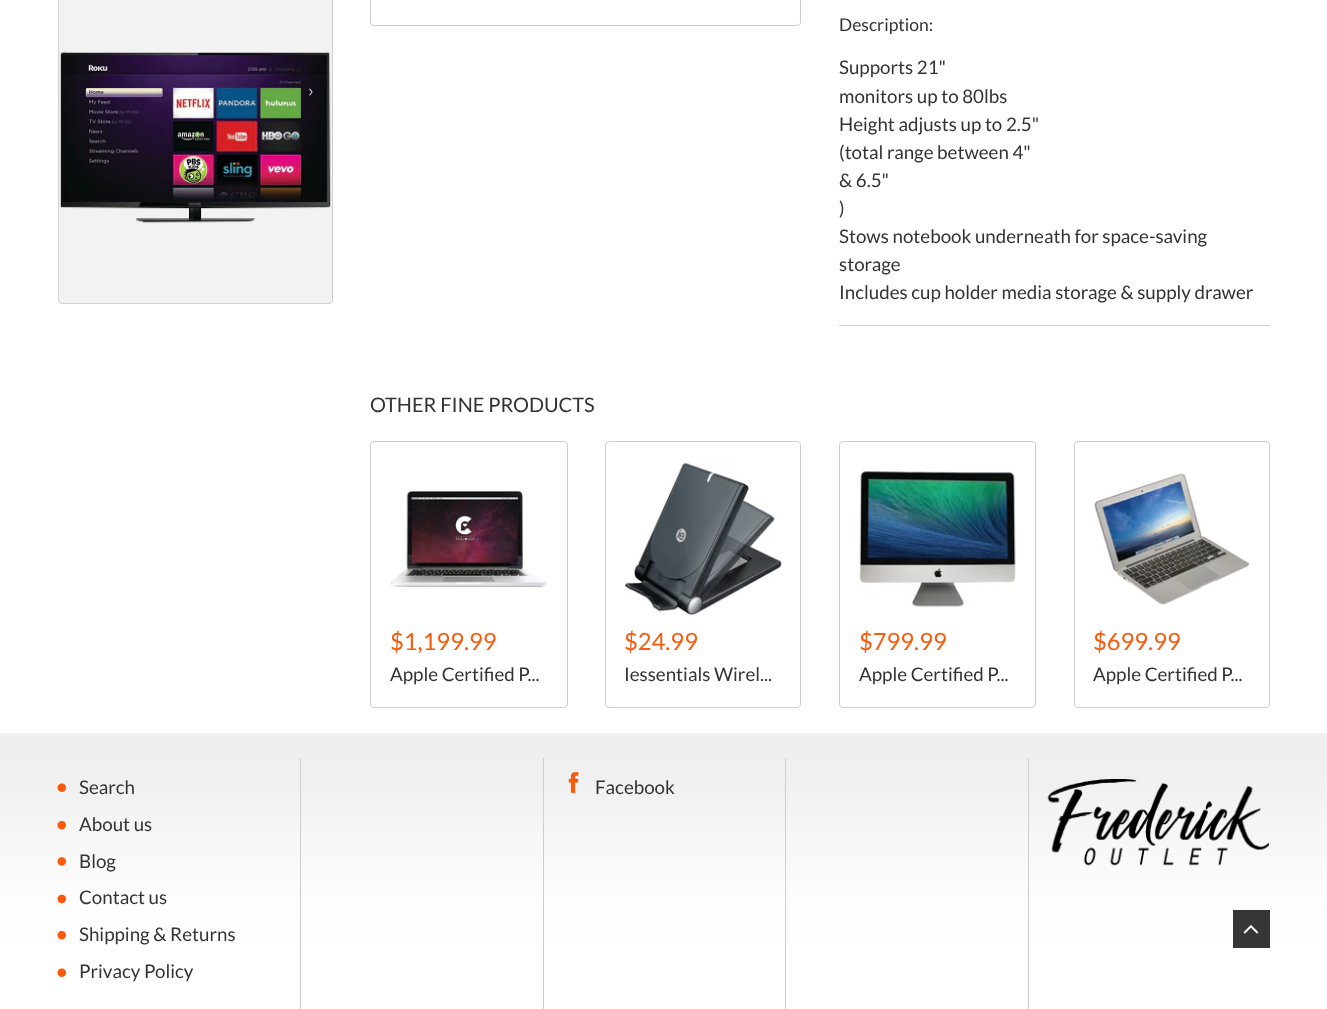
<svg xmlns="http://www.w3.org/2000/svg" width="1327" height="1009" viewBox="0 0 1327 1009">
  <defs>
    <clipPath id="clip1"><rect x="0" y="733" width="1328" height="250"/></clipPath>
  </defs>
  <rect width="100%" height="100%" fill="rgb(255,255,255)"/>
  <rect x="58.5" y="-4.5" width="274" height="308" rx="3.5" fill="rgb(242,242,242)" stroke="rgb(208,207,207)"/>
  <image x="60" y="51" width="271" height="172" href="pic1.png"/>
  <rect x="370.5" y="-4.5" width="430" height="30" rx="3.5" fill="none" stroke="rgb(208,207,207)"/>
  <image x="371" y="22" width="429" height="2" href="pic2.png"/>
  <text x="839" y="31" font-family="Lato" font-size="17.5" fill="rgb(51,51,51)">Description:</text>
  <g font-family="Lato" font-size="18.75" fill="rgb(51,51,51)">
    <text>
      <tspan x="839" y="74">Supports 21"</tspan>
      <tspan x="839" y="103">monitors up to 80lbs</tspan>
      <tspan x="839" y="131">Height adjusts up to 2.5"</tspan>
      <tspan x="839" y="159">(total range between 4"</tspan>
      <tspan x="839" y="187">&amp; 6.5"</tspan>
      <tspan x="839" y="215">)</tspan>
      <tspan x="839" y="243">Stows notebook underneath for space-saving</tspan>
      <tspan x="839" y="271">storage</tspan>
      <tspan x="839" y="299">Includes cup holder media storage &amp; supply drawer</tspan>
    </text>
  </g>
  <rect x="839" y="325" width="431" height="1" fill="rgb(208,207,207)"/>
  <text x="370" y="412" font-family="Lato" font-size="20" fill="rgb(51,51,51)">OTHER FINE PRODUCTS</text>
  <g clip-path="url(#clip1)">
    <rect x="-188" y="633" width="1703" height="200" fill="rgba(0,0,0,0.07)" filter="blur(62.5px)"/>
  </g>
  <rect x="370.5" y="441.5" width="197" height="266" rx="3.5" fill="none" stroke="rgb(208,207,207)"/>
  <image x="390" y="489" width="158" height="99" href="pic3.png"/>
  <text x="390" y="650" font-family="Lato" font-size="23.75" fill="rgb(250,90,12)">$1,199.99</text>
  <text x="390" y="681" font-family="Lato" font-size="18.75" fill="rgb(51,51,51)">Apple Certified P...</text>
  <rect x="605.5" y="441.5" width="195" height="266" rx="3.5" fill="none" stroke="rgb(208,207,207)"/>
  <image x="625" y="461" width="157" height="156" href="pic4.png"/>
  <text x="624" y="650" font-family="Lato" font-size="23.75" fill="rgb(250,90,12)">$24.99</text>
  <text x="624" y="681" font-family="Lato" font-size="18.75" fill="rgb(51,51,51)">Iessentials Wirel...</text>
  <rect x="839.5" y="441.5" width="196" height="266" rx="3.5" fill="none" stroke="rgb(208,207,207)"/>
  <image x="859" y="469" width="157" height="139" href="pic5.png"/>
  <text x="859" y="650" font-family="Lato" font-size="23.75" fill="rgb(250,90,12)">$799.99</text>
  <text x="859" y="681" font-family="Lato" font-size="18.75" fill="rgb(51,51,51)">Apple Certified P...</text>
  <rect x="1074.5" y="441.5" width="195" height="266" rx="3.5" fill="none" stroke="rgb(208,207,207)"/>
  <image x="1094" y="473" width="156" height="132" href="pic6.png"/>
  <text x="1093" y="650" font-family="Lato" font-size="23.75" fill="rgb(250,90,12)">$699.99</text>
  <text x="1093" y="681" font-family="Lato" font-size="18.75" fill="rgb(51,51,51)">Apple Certified P...</text>
  <image x="57" y="783" width="10" height="9" href="pic7.png"/>
  <text x="79" y="794" font-family="Lato" font-size="18.75" fill="rgb(51,51,51)">Search</text>
  <image x="57" y="820" width="10" height="10" href="pic8.png"/>
  <text x="79" y="831" font-family="Lato" font-size="18.75" fill="rgb(51,51,51)">About us</text>
  <image x="57" y="857" width="10" height="9" href="pic9.png"/>
  <text x="79" y="868" font-family="Lato" font-size="18.75" fill="rgb(51,51,51)">Blog</text>
  <image x="57" y="894" width="10" height="10" href="pic10.png"/>
  <text x="79" y="904" font-family="Lato" font-size="18.75" fill="rgb(51,51,51)">Contact us</text>
  <image x="57" y="930" width="10" height="10" href="pic11.png"/>
  <text x="79" y="941" font-family="Lato" font-size="18.75" fill="rgb(51,51,51)">Shipping &amp; Returns</text>
  <image x="57" y="968" width="10" height="9" href="pic12.png"/>
  <text x="79" y="978" font-family="Lato" font-size="18.75" fill="rgb(51,51,51)">Privacy Policy</text>
  <rect x="300" y="758" width="1" height="251" fill="rgb(208,207,207)"/>
  <rect x="543" y="758" width="1" height="251" fill="rgb(208,207,207)"/>
  <image x="568" y="772" width="11" height="21" href="pic13.png"/>
  <text x="595" y="794" font-family="Lato" font-size="18.75" fill="rgb(51,51,51)">Facebook</text>
  <rect x="785" y="758" width="1" height="251" fill="rgb(208,207,207)"/>
  <rect x="1028" y="758" width="1" height="251" fill="rgb(208,207,207)"/>
  <image x="1047" y="779" width="223" height="87" href="pic14.png"/>
  <rect x="1233" y="910" width="37" height="38" fill="rgb(54,54,54)"/>
  <image x="1243" y="925" width="16" height="9" href="pic15.png"/>
</svg>
